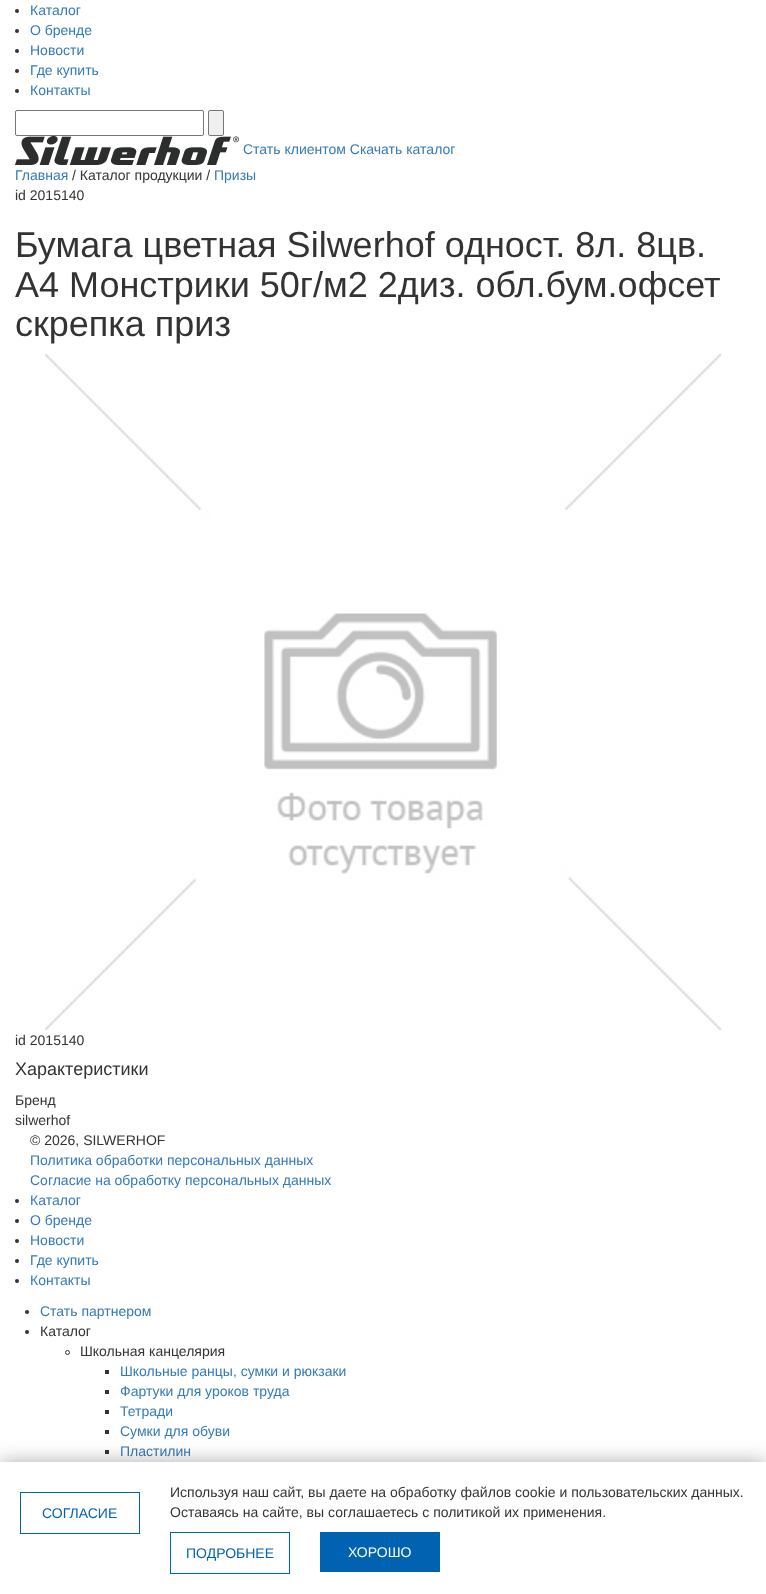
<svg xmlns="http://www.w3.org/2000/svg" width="766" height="1594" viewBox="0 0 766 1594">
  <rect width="100%" height="100%" fill="rgb(255,255,255)"/>
  <circle cx="17" cy="11" r="2" fill="rgb(51,51,51)"/>
  <text x="30" y="15" font-family="Liberation Sans" font-size="14" fill="rgb(51,122,183)">Каталог</text>
  <circle cx="17" cy="31" r="2" fill="rgb(51,51,51)"/>
  <text x="30" y="35" font-family="Liberation Sans" font-size="14" fill="rgb(51,122,183)">О бренде</text>
  <circle cx="17" cy="51" r="2" fill="rgb(51,51,51)"/>
  <text x="30" y="55" font-family="Liberation Sans" font-size="14" fill="rgb(51,122,183)">Новости</text>
  <circle cx="17" cy="71" r="2" fill="rgb(51,51,51)"/>
  <text x="30" y="75" font-family="Liberation Sans" font-size="14" fill="rgb(51,122,183)">Где купить</text>
  <circle cx="17" cy="91" r="2" fill="rgb(51,51,51)"/>
  <text x="30" y="95" font-family="Liberation Sans" font-size="14" fill="rgb(51,122,183)">Контакты</text>
  <rect x="15.5" y="110.5" width="188" height="25" rx="1.5" fill="none" stroke="rgb(118,118,118)"/>
  <rect x="208.5" y="110.5" width="15" height="25" rx="1.5" fill="rgb(239,239,239)" stroke="rgb(118,118,118)"/>
  <image x="15" y="136" width="224" height="29" href="pic1.png"/>
  <g font-family="Liberation Sans" font-size="14" fill="rgb(51,122,183)">
    <text x="243" y="154">Стать клиентом Скачать каталог</text>
    <text x="15" y="180">Главная</text>
  </g>
  <text x="72" y="180" font-family="Liberation Sans" font-size="14" fill="rgb(51,51,51)">/ Каталог продукции /</text>
  <text x="214" y="180" font-family="Liberation Sans" font-size="14" fill="rgb(51,122,183)">Призы</text>
  <text x="15" y="200" font-family="Liberation Sans" font-size="14" fill="rgb(51,51,51)">id 2015140</text>
  <g font-family="Liberation Sans" font-size="36" fill="rgb(51,51,51)">
    <text>
      <tspan x="15" y="257">Бумага цветная Silwerhof одност. 8л. 8цв.</tspan>
      <tspan x="15" y="297">A4 Монстрики 50г/м2 2диз. обл.бум.офсет</tspan>
      <tspan x="15" y="336">скрепка приз</tspan>
    </text>
  </g>
  <image x="45" y="354" width="676" height="676" href="pic2.png"/>
  <text x="15" y="1045" font-family="Liberation Sans" font-size="14" fill="rgb(51,51,51)">id 2015140</text>
  <text x="15" y="1075" font-family="Liberation Sans" font-size="18" fill="rgb(51,51,51)">Характеристики</text>
  <g font-family="Liberation Sans" font-size="14" fill="rgb(51,51,51)">
    <text>
      <tspan x="15" y="1105">Бренд</tspan>
      <tspan x="15" y="1125">silwerhof</tspan>
    </text>
    <text x="30" y="1145">© 2026, SILWERHOF</text>
  </g>
  <g font-family="Liberation Sans" font-size="14" fill="rgb(51,122,183)">
    <text>
      <tspan x="30" y="1165">Политика обработки персональных данных</tspan>
      <tspan x="30" y="1185">Согласие на обработку персональных данных</tspan>
    </text>
  </g>
  <circle cx="17" cy="1201" r="2" fill="rgb(51,51,51)"/>
  <text x="30" y="1205" font-family="Liberation Sans" font-size="14" fill="rgb(51,122,183)">Каталог</text>
  <circle cx="17" cy="1221" r="2" fill="rgb(51,51,51)"/>
  <text x="30" y="1225" font-family="Liberation Sans" font-size="14" fill="rgb(51,122,183)">О бренде</text>
  <circle cx="17" cy="1241" r="2" fill="rgb(51,51,51)"/>
  <text x="30" y="1245" font-family="Liberation Sans" font-size="14" fill="rgb(51,122,183)">Новости</text>
  <circle cx="17" cy="1261" r="2" fill="rgb(51,51,51)"/>
  <text x="30" y="1265" font-family="Liberation Sans" font-size="14" fill="rgb(51,122,183)">Где купить</text>
  <circle cx="17" cy="1281" r="2" fill="rgb(51,51,51)"/>
  <text x="30" y="1285" font-family="Liberation Sans" font-size="14" fill="rgb(51,122,183)">Контакты</text>
  <circle cx="27" cy="1312" r="2" fill="rgb(51,51,51)"/>
  <text x="40" y="1316" font-family="Liberation Sans" font-size="14" fill="rgb(51,122,183)">Стать партнером</text>
  <circle cx="27" cy="1332" r="2" fill="rgb(51,51,51)"/>
  <text x="40" y="1336" font-family="Liberation Sans" font-size="14" fill="rgb(51,51,51)">Каталог</text>
  <circle cx="67.5" cy="1352.5" r="2" fill="none" stroke="rgb(51,51,51)"/>
  <text x="80" y="1356" font-family="Liberation Sans" font-size="14" fill="rgb(51,51,51)">Школьная канцелярия</text>
  <rect x="105" y="1370" width="4" height="4" fill="rgb(51,51,51)"/>
  <text x="120" y="1376" font-family="Liberation Sans" font-size="14" fill="rgb(51,122,183)">Школьные ранцы, сумки и рюкзаки</text>
  <rect x="105" y="1390" width="4" height="4" fill="rgb(51,51,51)"/>
  <text x="120" y="1396" font-family="Liberation Sans" font-size="14" fill="rgb(51,122,183)">Фартуки для уроков труда</text>
  <rect x="105" y="1410" width="4" height="4" fill="rgb(51,51,51)"/>
  <text x="120" y="1416" font-family="Liberation Sans" font-size="14" fill="rgb(51,122,183)">Тетради</text>
  <rect x="105" y="1430" width="4" height="4" fill="rgb(51,51,51)"/>
  <text x="120" y="1436" font-family="Liberation Sans" font-size="14" fill="rgb(51,122,183)">Сумки для обуви</text>
  <rect x="105" y="1450" width="4" height="4" fill="rgb(51,51,51)"/>
  <text x="120" y="1456" font-family="Liberation Sans" font-size="14" fill="rgb(51,122,183)">Пластилин</text>
  <rect x="0" y="1462" width="766" height="132" fill="rgba(50,50,50,0.41)" filter="blur(10px)"/>
  <rect x="0" y="1462" width="766" height="132" fill="rgb(255,255,255)"/>
  <text x="170" y="1497" font-family="Liberation Sans" font-size="14" fill="rgb(51,51,51)">Используя наш сайт, вы даете на обработку файлов cookie и пользовательских данных.</text>
  <rect x="20.5" y="1492.5" width="119" height="41" fill="none" stroke="rgb(0,98,177)"/>
  <text x="42" y="1518" font-family="Liberation Sans" font-size="14" fill="rgb(0,98,177)">СОГЛАСИЕ</text>
  <text x="170" y="1517" font-family="Liberation Sans" font-size="14" fill="rgb(51,51,51)">Оставаясь на сайте, вы соглашаетесь с политикой их применения.</text>
  <rect x="170.5" y="1532.5" width="119" height="41" fill="none" stroke="rgb(0,98,177)"/>
  <text x="186" y="1558" font-family="Liberation Sans" font-size="14" fill="rgb(0,98,177)">ПОДРОБНЕЕ</text>
  <rect x="320" y="1532" width="120" height="40" fill="rgb(0,98,177)"/>
  <text x="348" y="1557" font-family="Liberation Sans" font-size="14" fill="rgb(255,255,255)">ХОРОШО</text>
</svg>
